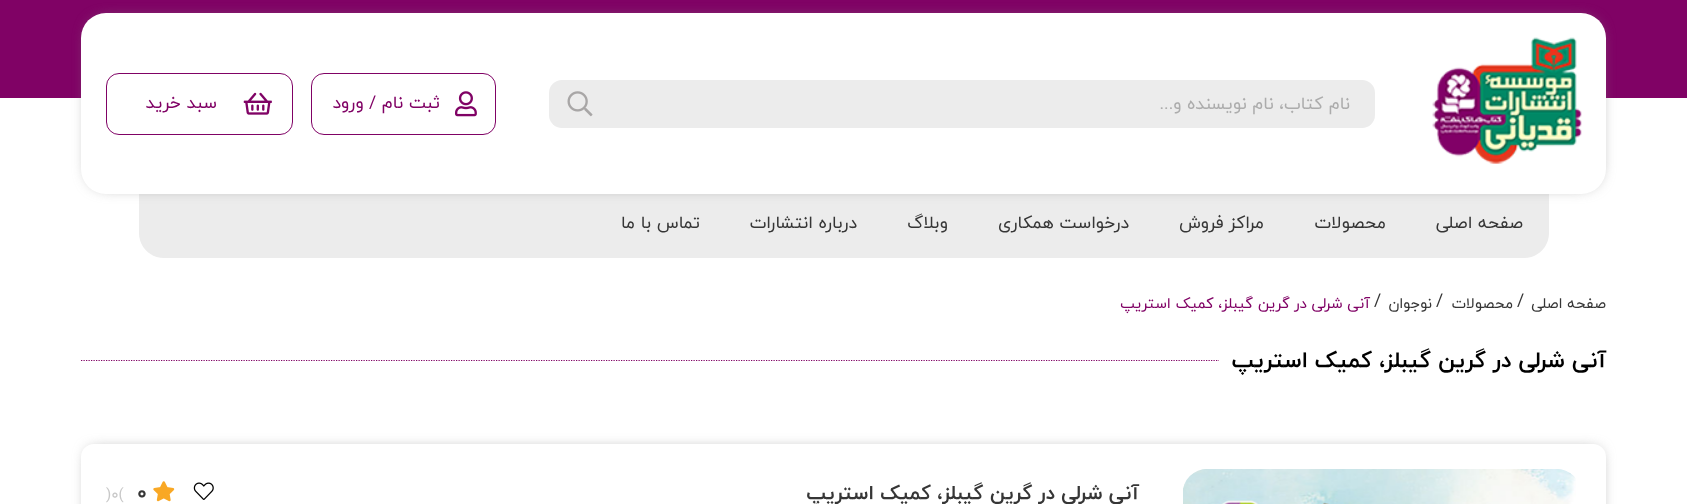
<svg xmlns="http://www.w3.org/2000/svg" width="1687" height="504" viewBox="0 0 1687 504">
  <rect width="100%" height="100%" fill="rgb(255,255,255)"/>
  <rect x="0" y="0" width="1687" height="98" fill="rgb(128,2,101)"/>
  <path d="M139 181H1549V233C1549 247 1538 258 1524 258H164C150 258 139 247 139 233Z" fill="rgb(236,236,236)"/>
  <rect x="89" y="20" width="1510" height="166" rx="18" fill="rgb(128,128,128)" filter="blur(7.5px)"/>
  <rect x="81" y="13" width="1525" height="181" rx="25" fill="rgb(255,255,255)"/>
  <image x="1432" y="37" width="150" height="127" href="pic1.png"/>
  <rect x="549" y="80" width="826" height="48" rx="13" fill="rgb(236,236,236)"/>
  <text x="1350" y="109" font-family="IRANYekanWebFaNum" font-size="17.5" direction="rtl" fill="rgb(172,172,172)">نام کتاب، نام نویسنده و...</text>
  <image x="567" y="91" width="26" height="26" href="pic2.png"/>
  <rect x="311.5" y="73.5" width="184" height="61" rx="12.5" fill="none" stroke="rgb(128,2,101)"/>
  <image x="455" y="91" width="22" height="26" href="pic3.png"/>
  <text x="440" y="108" font-family="IRANYekanWebFaNum" font-size="17.5" direction="rtl" fill="rgb(128,2,101)">ثبت نام / ورود</text>
  <rect x="106.5" y="73.5" width="186" height="61" rx="12.5" fill="none" stroke="rgb(128,2,101)"/>
  <image x="243" y="92" width="29" height="23" href="pic4.png"/>
  <text x="217" y="108" font-family="IRANYekanWebFaNum" font-size="17.5" direction="rtl" fill="rgb(128,2,101)">سبد خرید</text>
  <g font-family="IRANYekanWebFaNum" font-size="17.5" direction="rtl" fill="rgb(54,54,54)">
    <text x="1523" y="228">صفحه اصلی</text>
    <text x="1386" y="228">محصولات</text>
    <text x="1264" y="228">مراکز فروش</text>
    <text x="1129" y="228">درخواست همکاری</text>
    <text x="948" y="228">وبلاگ</text>
    <text x="857" y="228">درباره انتشارات</text>
    <text x="700" y="228">تماس با ما</text>
  </g>
  <text x="1606" y="308" font-family="IRANYekanWebFaNum" font-size="15" direction="rtl" fill="rgb(54,54,54)">صفحه اصلی</text>
  <text x="1517" y="306" font-family="IRANYekanWebFaNum" font-size="17.5" fill="rgb(54,54,54)">/</text>
  <text x="1513" y="308" font-family="IRANYekanWebFaNum" font-size="15" direction="rtl" fill="rgb(54,54,54)">محصولات</text>
  <text x="1436" y="306" font-family="IRANYekanWebFaNum" font-size="17.5" fill="rgb(54,54,54)">/</text>
  <text x="1432" y="308" font-family="IRANYekanWebFaNum" font-size="15" direction="rtl" fill="rgb(54,54,54)">نوجوان</text>
  <text x="1374" y="306" font-family="IRANYekanWebFaNum" font-size="17.5" fill="rgb(54,54,54)">/</text>
  <text x="1370" y="308" font-family="IRANYekanWebFaNum" font-size="15" direction="rtl" fill="rgb(128,2,101)">آنی شرلی در گرین گیبلز، کمیک استریپ</text>
  <text x="1606" y="367" font-family="IRANYekanWebFaNum" font-size="22.5" font-weight="bold" direction="rtl" fill="rgb(0,0,0)">آنی شرلی در گرین گیبلز، کمیک استریپ</text>
  <path d="M81 360.5H1219" fill="none" stroke="rgb(128,2,101)" stroke-width="1.2" stroke-dasharray="1.25 1.25"/>
  <rect x="89" y="451" width="1510" height="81" rx="5" fill="rgb(128,128,128)" filter="blur(7.5px)"/>
  <rect x="81" y="444" width="1525" height="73" rx="13" fill="rgb(255,255,255)"/>
  <image x="1183" y="469" width="393" height="35" href="pic5.png"/>
  <text x="1139" y="499" font-family="IRANYekanWebFaNum" font-size="20" font-weight="bold" direction="rtl" fill="rgb(54,54,54)">آنی شرلی در گرین گیبلز، کمیک استریپ</text>
  <image x="193" y="482" width="21" height="18" href="pic6.png"/>
  <image x="153" y="481" width="22" height="21" href="pic7.png"/>
  <text x="137" y="499" font-family="IRANYekanWebFaNum" font-size="20" font-weight="bold" fill="rgb(54,54,54)">0</text>
  <text x="106" y="499" font-family="IRANYekanWebFaNum" font-size="15" fill="rgb(200,200,200)">)0(</text>
</svg>
